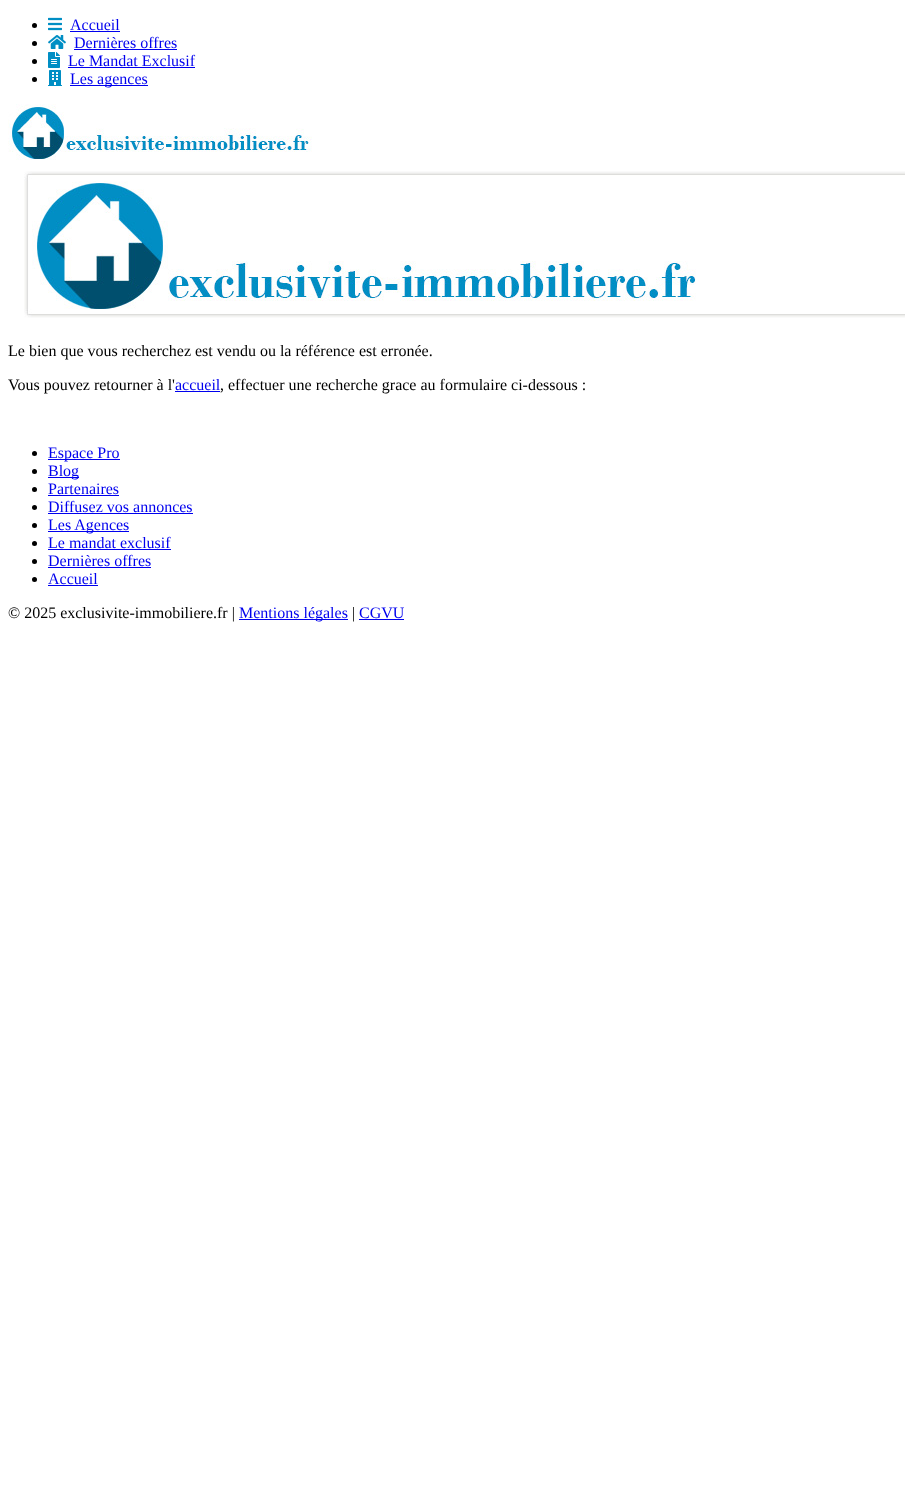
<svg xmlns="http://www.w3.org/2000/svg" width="905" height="1502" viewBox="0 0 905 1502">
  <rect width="100%" height="100%" fill="rgb(255,255,255)"/>
  <circle cx="34.5" cy="25.5" r="2.5" fill="rgb(0,0,0)"/>
  <image x="48" y="17" width="14" height="14" href="pic1.png"/>
  <text x="70" y="30" font-family="Liberation Serif" font-size="16" fill="rgb(0,0,238)">Accueil</text>
  <rect x="70" y="31" width="50" height="1" fill="rgb(0,0,238)"/>
  <circle cx="34.5" cy="43.5" r="2.5" fill="rgb(0,0,0)"/>
  <image x="48" y="35" width="18" height="14" href="pic2.png"/>
  <text x="74" y="48" font-family="Liberation Serif" font-size="16" fill="rgb(0,0,238)">Dernières offres</text>
  <rect x="74" y="49" width="103" height="1" fill="rgb(0,0,238)"/>
  <circle cx="34.5" cy="61.5" r="2.5" fill="rgb(0,0,0)"/>
  <image x="48" y="52" width="12" height="16" href="pic3.png"/>
  <text x="68" y="66" font-family="Liberation Serif" font-size="16" fill="rgb(0,0,238)">Le Mandat Exclusif</text>
  <rect x="68" y="67" width="127" height="1" fill="rgb(0,0,238)"/>
  <circle cx="34.5" cy="79.5" r="2.5" fill="rgb(0,0,0)"/>
  <image x="48" y="70" width="14" height="16" href="pic4.png"/>
  <rect x="70" y="85" width="78" height="1" fill="rgb(0,0,238)"/>
  <text x="70" y="84" font-family="Liberation Serif" font-size="16" fill="rgb(0,0,238)">Les agences</text>
  <image x="8" y="104" width="304" height="56" href="pic5.png"/>
  <image x="24" y="171" width="881" height="147" href="pic6.png"/>
  <g font-family="Liberation Serif" font-size="16" fill="rgb(0,0,0)">
    <text x="8" y="356">Le bien que vous recherchez est vendu ou la référence est erronée.</text>
    <text x="8" y="390">Vous pouvez retourner à l'</text>
  </g>
  <text x="175" y="390" font-family="Liberation Serif" font-size="16" fill="rgb(0,0,238)">accueil</text>
  <rect x="175" y="391" width="45" height="1" fill="rgb(0,0,238)"/>
  <text x="220" y="390" font-family="Liberation Serif" font-size="16" fill="rgb(0,0,0)">, effectuer une recherche grace au formulaire ci-dessous :</text>
  <circle cx="34.5" cy="453.5" r="2.5" fill="rgb(0,0,0)"/>
  <rect x="48" y="459" width="72" height="1" fill="rgb(0,0,238)"/>
  <text x="48" y="458" font-family="Liberation Serif" font-size="16" fill="rgb(0,0,238)">Espace Pro</text>
  <circle cx="34.5" cy="471.5" r="2.5" fill="rgb(0,0,0)"/>
  <rect x="48" y="477" width="31" height="1" fill="rgb(0,0,238)"/>
  <text x="48" y="476" font-family="Liberation Serif" font-size="16" fill="rgb(0,0,238)">Blog</text>
  <circle cx="34.5" cy="489.5" r="2.5" fill="rgb(0,0,0)"/>
  <text x="48" y="494" font-family="Liberation Serif" font-size="16" fill="rgb(0,0,238)">Partenaires</text>
  <rect x="48" y="495" width="71" height="1" fill="rgb(0,0,238)"/>
  <circle cx="34.5" cy="507.5" r="2.5" fill="rgb(0,0,0)"/>
  <text x="48" y="512" font-family="Liberation Serif" font-size="16" fill="rgb(0,0,238)">Diffusez vos annonces</text>
  <rect x="48" y="513" width="145" height="1" fill="rgb(0,0,238)"/>
  <circle cx="34.5" cy="525.5" r="2.5" fill="rgb(0,0,0)"/>
  <rect x="48" y="531" width="81" height="1" fill="rgb(0,0,238)"/>
  <text x="48" y="530" font-family="Liberation Serif" font-size="16" fill="rgb(0,0,238)">Les Agences</text>
  <circle cx="34.5" cy="543.5" r="2.5" fill="rgb(0,0,0)"/>
  <text x="48" y="548" font-family="Liberation Serif" font-size="16" fill="rgb(0,0,238)">Le mandat exclusif</text>
  <rect x="48" y="549" width="123" height="1" fill="rgb(0,0,238)"/>
  <circle cx="34.5" cy="561.5" r="2.5" fill="rgb(0,0,0)"/>
  <text x="48" y="566" font-family="Liberation Serif" font-size="16" fill="rgb(0,0,238)">Dernières offres</text>
  <rect x="48" y="567" width="103" height="1" fill="rgb(0,0,238)"/>
  <circle cx="34.5" cy="579.5" r="2.5" fill="rgb(0,0,0)"/>
  <text x="48" y="584" font-family="Liberation Serif" font-size="16" fill="rgb(0,0,238)">Accueil</text>
  <rect x="48" y="585" width="50" height="1" fill="rgb(0,0,238)"/>
  <text x="8" y="618" font-family="Liberation Serif" font-size="16" fill="rgb(0,0,0)">© 2025 exclusivite-immobiliere.fr |</text>
  <rect x="239" y="619" width="109" height="1" fill="rgb(0,0,238)"/>
  <text x="239" y="618" font-family="Liberation Serif" font-size="16" fill="rgb(0,0,238)">Mentions légales</text>
  <text x="352" y="618" font-family="Liberation Serif" font-size="16" fill="rgb(0,0,0)">|</text>
  <text x="359" y="618" font-family="Liberation Serif" font-size="16" fill="rgb(0,0,238)">CGVU</text>
  <rect x="359" y="619" width="45" height="1" fill="rgb(0,0,238)"/>
</svg>
